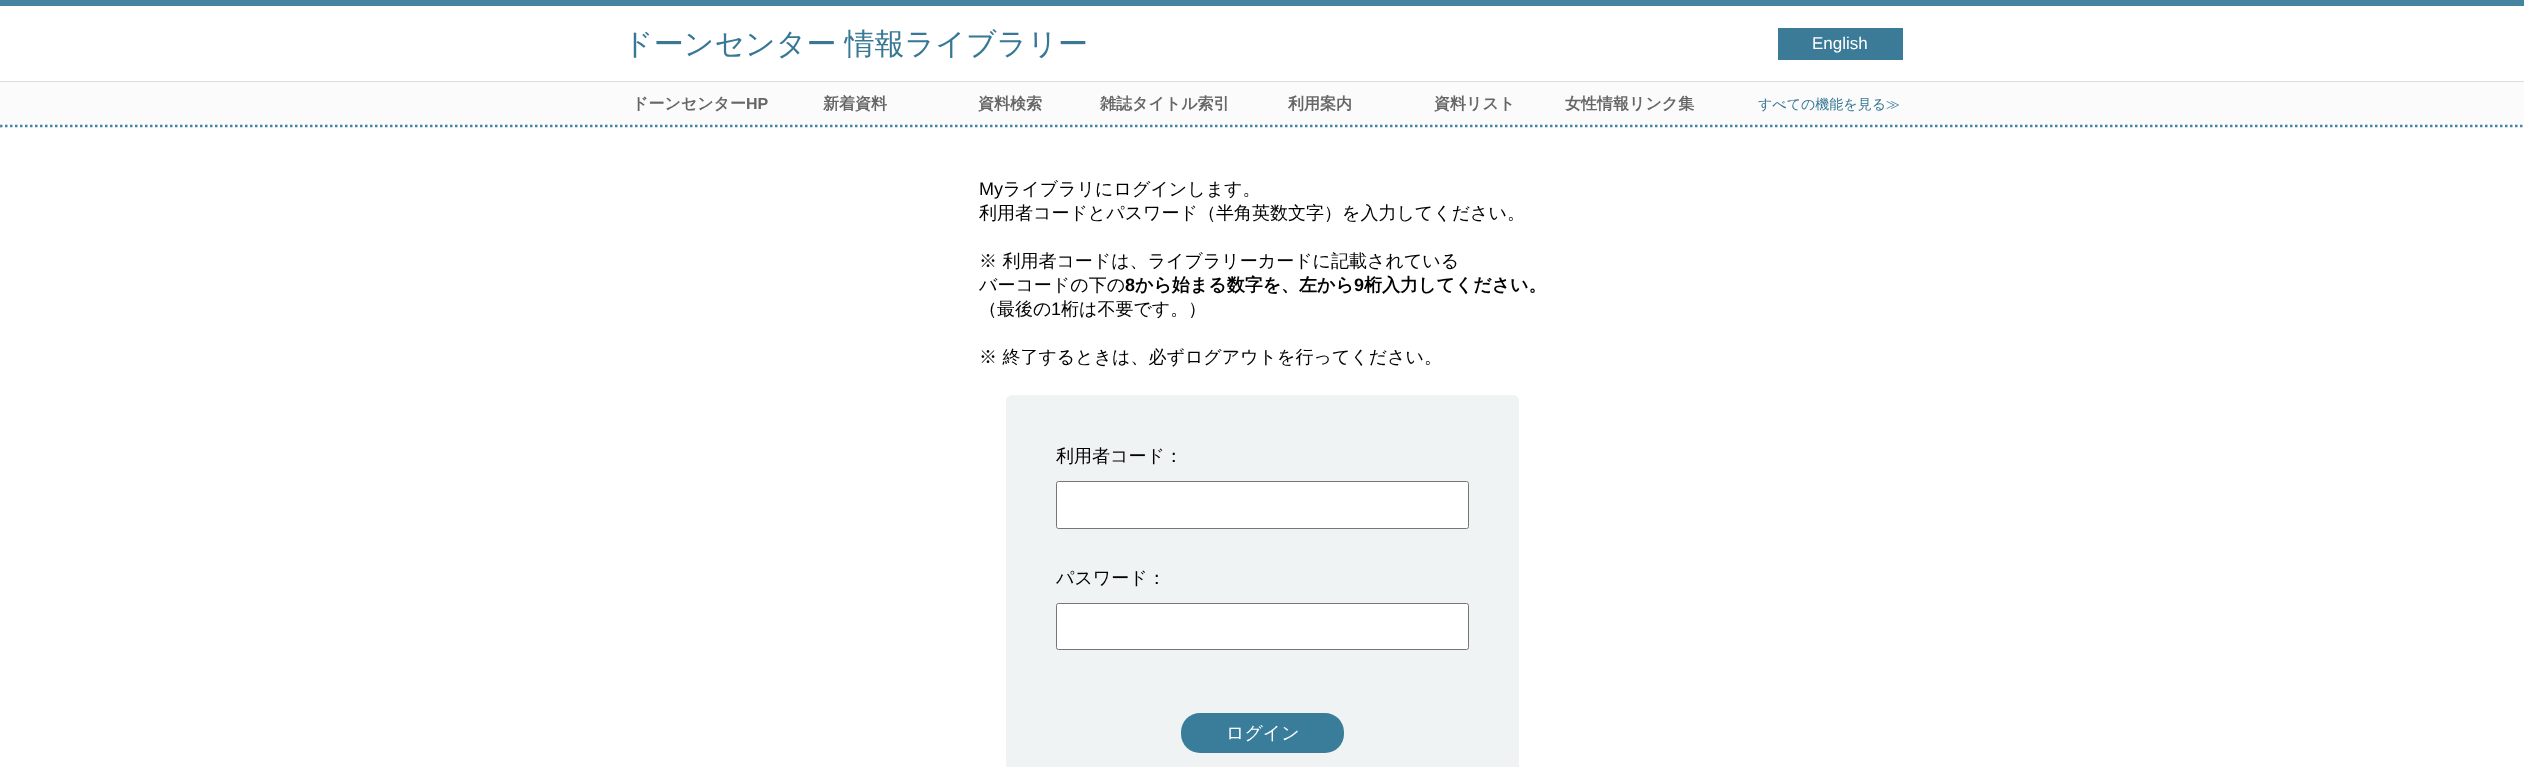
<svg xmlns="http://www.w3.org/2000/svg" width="2524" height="767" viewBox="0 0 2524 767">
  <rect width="100%" height="100%" fill="rgb(255,255,255)"/>
  <rect x="0" y="0" width="2524" height="6" fill="rgb(69,131,161)"/>
  <text x="623" y="54" word-spacing="-1" font-family="WenQuanYi Zen Hei" font-size="30" font-weight="500" fill="rgb(56,120,149)">ドーンセンター 情報ライブラリー</text>
  <rect x="1778" y="28" width="125" height="32" fill="rgb(60,123,151)"/>
  <text x="1812" y="49" font-family="Liberation Sans" font-size="17" fill="rgb(255,255,255)">English</text>
  <rect x="0" y="82" width="2524" height="43" fill="rgb(251,251,251)"/>
  <rect x="0" y="81" width="2524" height="1" fill="rgb(221,221,221)"/>
  <text x="632" y="109" font-family="WenQuanYi Zen Hei" font-size="16" font-weight="bold" fill="rgb(102,102,102)">ドーンセンター</text>
  <text x="746" y="109" font-family="Liberation Sans" font-size="16" font-weight="bold" fill="rgb(102,102,102)">HP</text>
  <g font-family="WenQuanYi Zen Hei" font-size="16" font-weight="bold" fill="rgb(102,102,102)">
    <text x="823" y="109">新着資料</text>
    <text x="978" y="109">資料検索</text>
    <text x="1100" y="109">雑誌タイトル索引</text>
    <text x="1288" y="109">利用案内</text>
    <text x="1434" y="109">資料リスト</text>
    <text x="1565" y="109">女性情報リンク集</text>
  </g>
  <text x="1758" y="109" font-family="WenQuanYi Zen Hei" font-size="14" font-weight="500" fill="rgb(56,120,149)">すべての機能を見る≫</text>
  <path d="M0 126H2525" fill="none" stroke="rgb(69,131,161)" stroke-width="2.5" stroke-dasharray="2.5 2.5"/>
  <path d="M0 127.5V125L1 127.5Z" fill="rgb(159,159,159)"/>
  <text x="979" y="195" font-family="Liberation Sans" font-size="18" fill="rgb(0,0,0)">My</text>
  <g font-family="WenQuanYi Zen Hei" font-size="18" font-weight="500" fill="rgb(0,0,0)">
    <text x="1003" y="195">ライブラリにログインします。</text>
    <text x="979" y="219">利用者コードとパスワード（半角英数文字）を入力してください。</text>
    <text>
      <tspan x="979" y="267">※ 利用者コードは、ライブラリーカードに記載されている</tspan>
      <tspan x="979" y="291">バーコードの下の</tspan>
    </text>
  </g>
  <text x="1125" y="291" font-family="Liberation Sans" font-size="18" font-weight="bold" fill="rgb(0,0,0)">8</text>
  <text x="1135" y="291" font-family="WenQuanYi Zen Hei" font-size="18" font-weight="bold" fill="rgb(0,0,0)">から始まる数字を、左から</text>
  <text x="1354" y="291" font-family="Liberation Sans" font-size="18" font-weight="bold" fill="rgb(0,0,0)">9</text>
  <text x="1364" y="291" font-family="WenQuanYi Zen Hei" font-size="18" font-weight="bold" fill="rgb(0,0,0)">桁入力してください。</text>
  <text x="979" y="315" font-family="WenQuanYi Zen Hei" font-size="18" font-weight="500" fill="rgb(0,0,0)">（最後の</text>
  <text x="1051" y="315" font-family="Liberation Sans" font-size="18" fill="rgb(0,0,0)">1</text>
  <g font-family="WenQuanYi Zen Hei" font-size="18" font-weight="500" fill="rgb(0,0,0)">
    <text x="1061" y="315">桁は不要です。）</text>
    <text x="979" y="363">※ 終了するときは、必ずログアウトを行ってください。</text>
  </g>
  <rect x="1006" y="395" width="513" height="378" rx="6" fill="rgb(239,243,244)"/>
  <text x="1056" y="462" font-family="WenQuanYi Zen Hei" font-size="18" font-weight="500" fill="rgb(0,0,0)">利用者コード：</text>
  <rect x="1056.5" y="481.5" width="412" height="47" rx="2" fill="rgb(255,255,255)" stroke="rgb(118,118,118)"/>
  <text x="1056" y="584" font-family="WenQuanYi Zen Hei" font-size="18" font-weight="500" fill="rgb(0,0,0)">パスワード：</text>
  <rect x="1056.5" y="603.5" width="412" height="46" rx="2" fill="rgb(255,255,255)" stroke="rgb(118,118,118)"/>
  <rect x="1181" y="713" width="163" height="40" rx="19" fill="rgb(57,125,154)"/>
  <text x="1226" y="739" font-family="WenQuanYi Zen Hei" font-size="18" font-weight="500" fill="rgb(255,255,255)">ログイン</text>
</svg>
